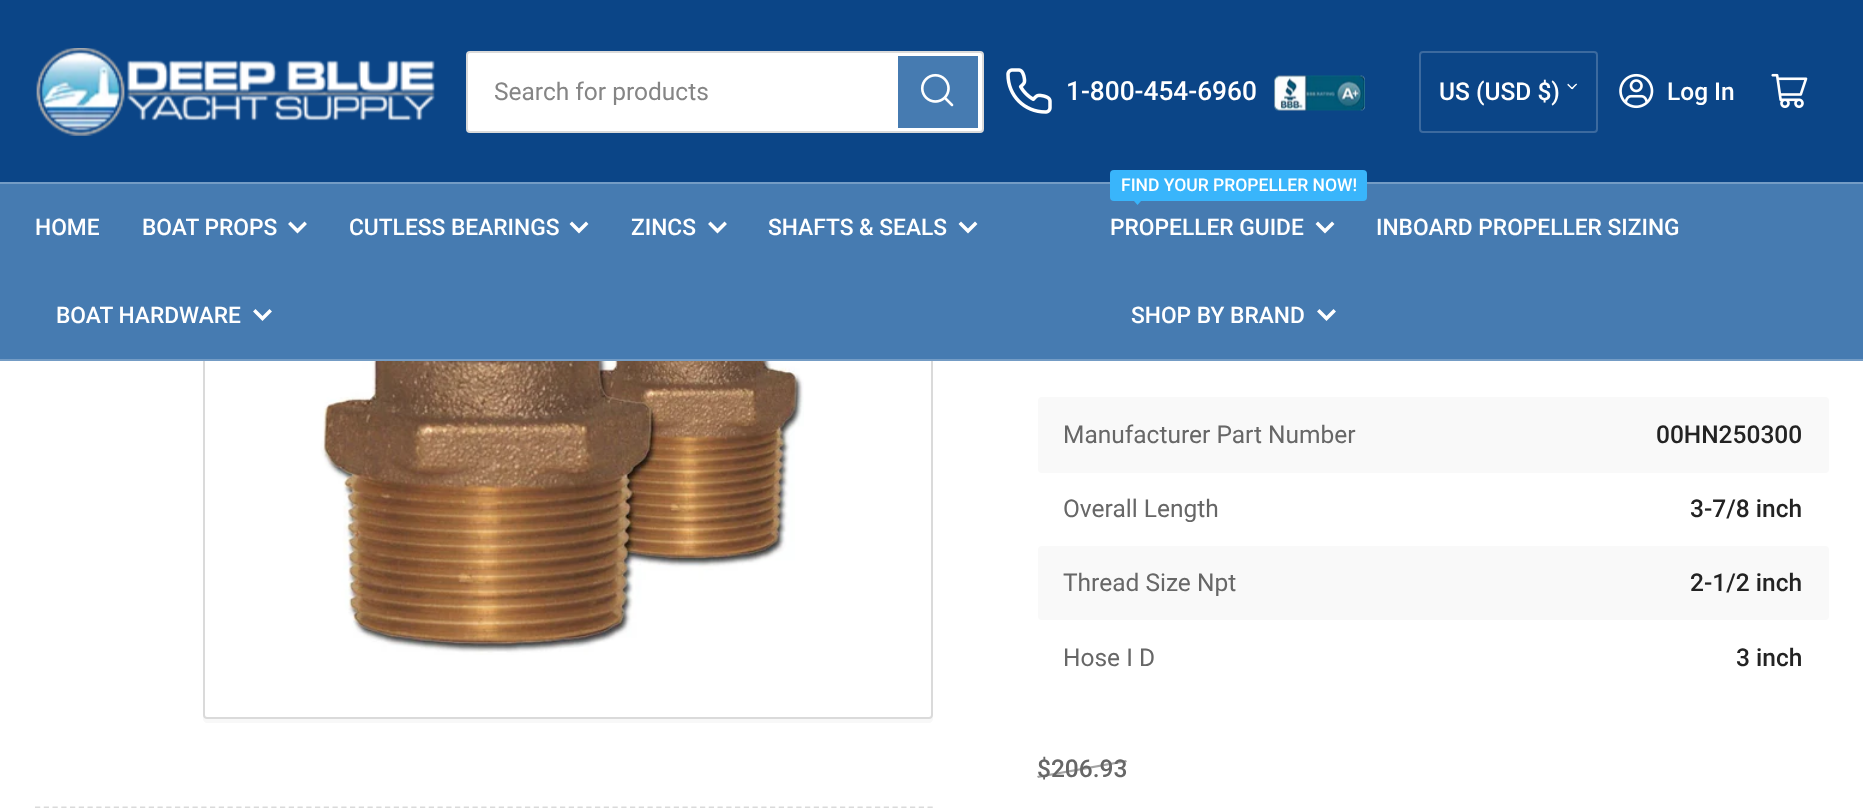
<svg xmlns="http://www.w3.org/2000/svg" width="1863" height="808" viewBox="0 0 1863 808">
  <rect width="100%" height="100%" fill="rgb(255,255,255)"/>
  <path d="M203 716V719C203 721 205 723 207 723H929C931 723 933 721 933 719V-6V716C933 718 931 719 929 719H206C205 719 203 718 203 716Z" fill="rgb(248,248,248)"/>
  <rect x="204" y="-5" width="728" height="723" rx="3" fill="none" stroke="rgb(218,218,218)" stroke-width="2"/>
  <rect x="0" y="0" width="1863" height="182" fill="rgb(11,69,135)"/>
  <image x="36" y="48" width="399" height="88" href="pic1.png"/>
  <rect x="467" y="52" width="516" height="80" rx="3" fill="rgb(255,255,255)" stroke="rgb(218,218,218)" stroke-width="2"/>
  <text x="494" y="100" font-family="Roboto" font-size="24.5" fill="rgb(133,133,133)">Search for products</text>
  <rect x="899" y="57" width="78" height="70" fill="none" stroke="rgb(70,123,177)" stroke-width="2"/>
  <rect x="900" y="58" width="76" height="68" fill="rgb(70,123,177)"/>
  <image x="920" y="73" width="34" height="34" href="pic2.png"/>
  <image x="1006" y="68" width="46" height="46" href="pic3.png"/>
  <text x="1066" y="100" font-family="Roboto" font-size="26.25" font-weight="500" fill="rgb(255,255,255)">1-800-454-6960</text>
  <image x="1274" y="75" width="91" height="36" href="pic4.png"/>
  <rect x="1420" y="52" width="177" height="80" rx="3" fill="none" stroke="rgb(60,106,159)" stroke-width="2"/>
  <text x="1439" y="100" font-family="Roboto" font-size="24.5" font-weight="500" fill="rgb(255,255,255)">US (USD $)</text>
  <path d="M1568.5 84L1572 87.5C1573 88.5 1573 89.5 1571.5 89L1569 86.5C1568.5 86 1567 85 1567.5 84.5C1567.5 84 1568 83.5 1568.5 84Z" fill="rgb(255,255,255)"/>
  <path d="M1571.5 88L1575 84.5C1576 83.5 1577.5 83.5 1577 84.5L1574 87.5C1573.5 88 1573 89.5 1572 89C1571.5 89 1571.5 88.5 1571.5 88Z" fill="rgb(255,255,255)"/>
  <image x="1619" y="73" width="35" height="36" href="pic5.png"/>
  <text x="1667" y="100" font-family="Roboto" font-size="24.5" font-weight="500" fill="rgb(255,255,255)">Log In</text>
  <image x="1771" y="73" width="37" height="35" href="pic6.png"/>
  <rect x="0" y="184" width="1863" height="175" fill="rgb(70,123,177)"/>
  <rect x="0" y="182" width="1863" height="2" fill="rgb(116,156,197)"/>
  <rect x="0" y="359" width="1863" height="2" fill="rgb(116,156,197)"/>
  <g font-family="Roboto" font-size="22.75" font-weight="500" fill="rgb(255,255,255)">
    <text x="35" y="235">HOME</text>
    <text x="142" y="235">BOAT PROPS</text>
  </g>
  <path d="M304.5 224L297.5 231L290.5 224" fill="none" stroke="rgb(255,255,255)" stroke-width="3.5" stroke-linecap="square"/>
  <text x="349" y="235" font-family="Roboto" font-size="22.75" font-weight="500" fill="rgb(255,255,255)">CUTLESS BEARINGS</text>
  <path d="M586 224L579 231L572 224" fill="none" stroke="rgb(255,255,255)" stroke-width="3.5" stroke-linecap="square"/>
  <text x="631" y="235" font-family="Roboto" font-size="22.75" font-weight="500" fill="rgb(255,255,255)">ZINCS</text>
  <path d="M724.5 224L717.5 231L710.5 224" fill="none" stroke="rgb(255,255,255)" stroke-width="3.5" stroke-linecap="square"/>
  <text x="768" y="235" font-family="Roboto" font-size="22.75" font-weight="500" fill="rgb(255,255,255)">SHAFTS &amp; SEALS</text>
  <path d="M975 224L968 231L961 224" fill="none" stroke="rgb(255,255,255)" stroke-width="3.5" stroke-linecap="square"/>
  <text x="56" y="323" font-family="Roboto" font-size="22.75" font-weight="500" fill="rgb(255,255,255)">BOAT HARDWARE</text>
  <path d="M269.5 311.5L262.5 318.5L255.5 311.5" fill="none" stroke="rgb(255,255,255)" stroke-width="3.5" stroke-linecap="square"/>
  <rect x="1110" y="170" width="257" height="31" rx="4" fill="rgb(57,181,251)"/>
  <text x="1121" y="191" font-family="Roboto" font-size="17.5" font-weight="500" fill="rgb(255,255,255)">FIND YOUR PROPELLER NOW!</text>
  <path d="M1134 201H1141L1137.5 205Z" fill="rgb(57,181,251)"/>
  <text x="1110" y="235" font-family="Roboto" font-size="22.75" font-weight="500" fill="rgb(255,255,255)">PROPELLER GUIDE</text>
  <path d="M1332 224L1325 231L1318 224" fill="none" stroke="rgb(255,255,255)" stroke-width="3.5" stroke-linecap="square"/>
  <g font-family="Roboto" font-size="22.75" font-weight="500" fill="rgb(255,255,255)">
    <text x="1376" y="235">INBOARD PROPELLER SIZING</text>
    <text x="1131" y="323">SHOP BY BRAND</text>
  </g>
  <path d="M1333.5 311.5L1326.5 318.5L1319.5 311.5" fill="none" stroke="rgb(255,255,255)" stroke-width="3.5" stroke-linecap="square"/>
  <image x="320" y="361" width="484" height="294" href="pic7.png"/>
  <rect x="1038" y="397" width="791" height="76" rx="4" fill="rgb(249,249,249)"/>
  <text x="1063" y="443" font-family="Roboto" font-size="24.5" fill="rgb(103,103,103)">Manufacturer Part Number</text>
  <text x="1656" y="443" font-family="Roboto" font-size="24.5" font-weight="500" fill="rgb(35,35,35)">00HN250300</text>
  <text x="1063" y="517" font-family="Roboto" font-size="24.5" fill="rgb(103,103,103)">Overall Length</text>
  <text x="1690" y="517" font-family="Roboto" font-size="24.5" font-weight="500" fill="rgb(35,35,35)">3-7/8 inch</text>
  <rect x="1038" y="546" width="791" height="74" rx="4" fill="rgb(249,249,249)"/>
  <text x="1063" y="591" font-family="Roboto" font-size="24.5" fill="rgb(103,103,103)">Thread Size Npt</text>
  <text x="1690" y="591" font-family="Roboto" font-size="24.5" font-weight="500" fill="rgb(35,35,35)">2-1/2 inch</text>
  <text x="1063" y="666" font-family="Roboto" font-size="24.5" fill="rgb(103,103,103)">Hose I D</text>
  <text x="1736" y="666" font-family="Roboto" font-size="24.5" font-weight="500" fill="rgb(35,35,35)">3 inch</text>
  <text x="1037" y="777" font-family="Roboto" font-size="24.5" font-weight="500" fill="rgb(103,103,103)">$206.93</text>
  <path d="M1037 776L1126 760L1127 762L1038 778Z" fill="rgba(103,103,103,0.6)"/>
  <path d="M35 807.5H933" fill="none" stroke="rgb(218,218,218)" stroke-width="1.8" stroke-dasharray="5.25 3.5"/>
</svg>
